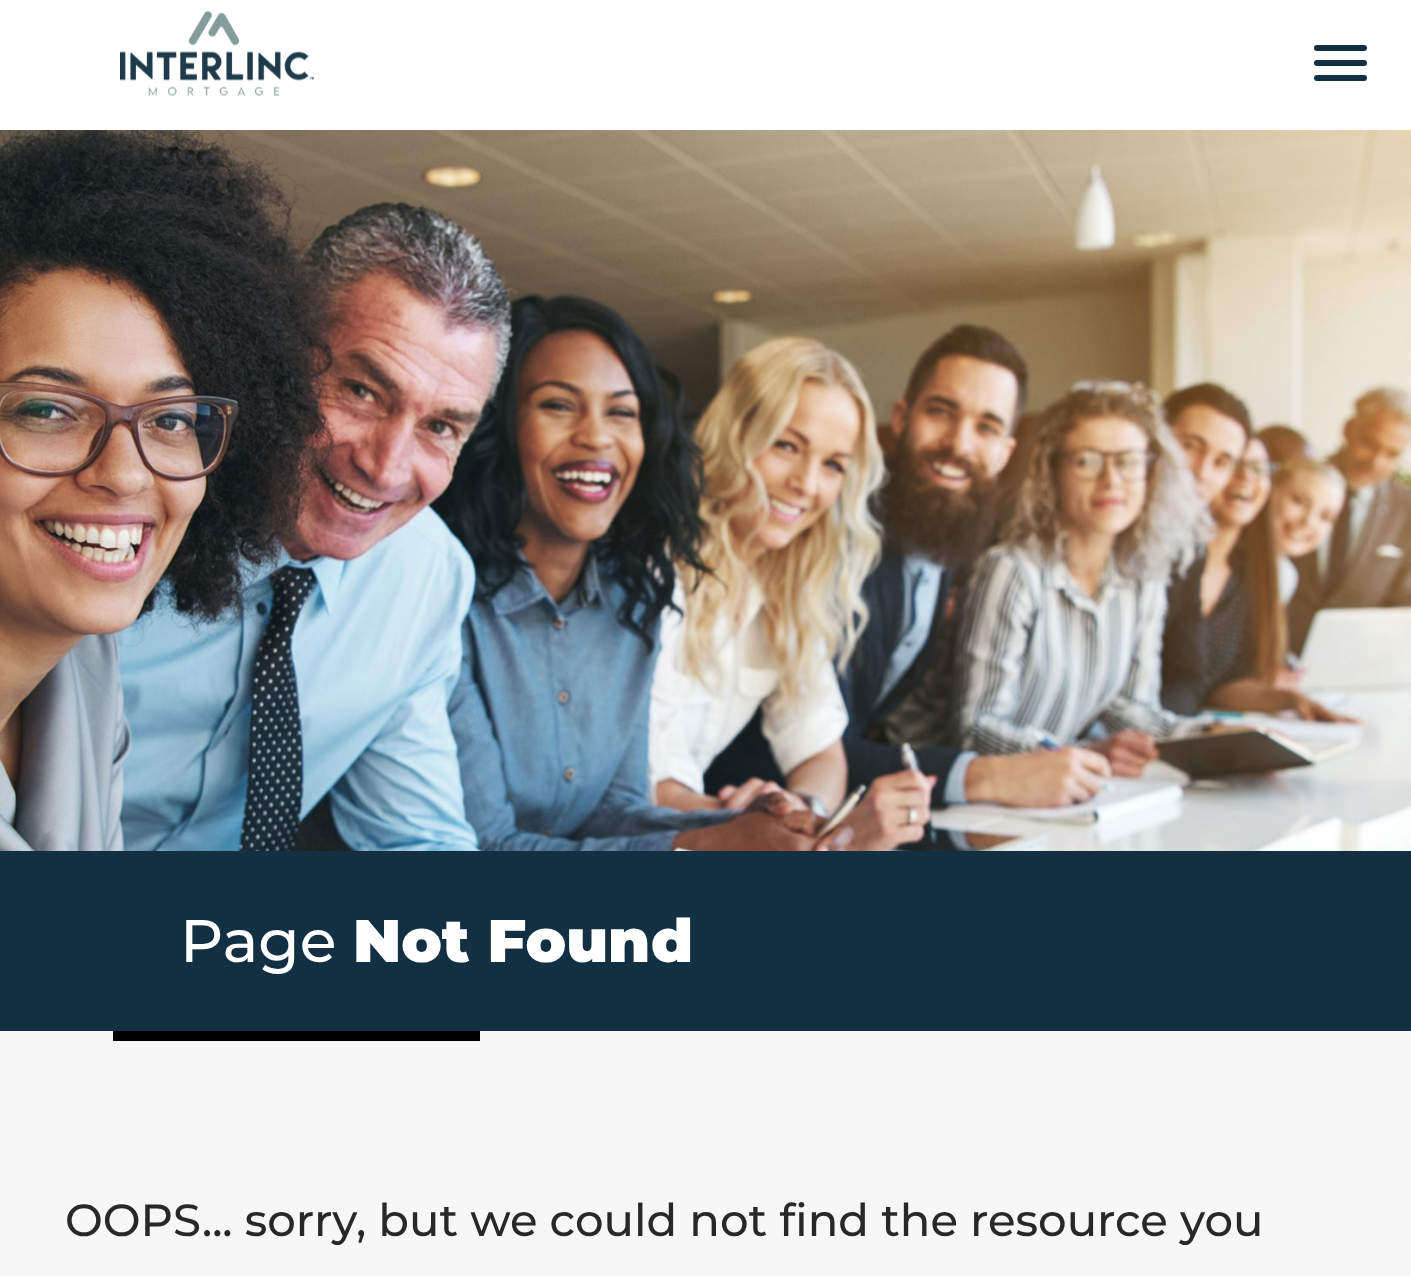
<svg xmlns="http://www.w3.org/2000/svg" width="1411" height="1276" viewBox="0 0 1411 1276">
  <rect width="100%" height="100%" fill="rgb(255,255,255)"/>
  <image x="120" y="10" width="194" height="86" href="pic1.png"/>
  <rect x="1314" y="45" width="53" height="6" rx="3" fill="rgb(19,48,66)"/>
  <rect x="1314" y="60" width="53" height="6" rx="3" fill="rgb(19,48,66)"/>
  <rect x="1314" y="75" width="53" height="6" rx="3" fill="rgb(19,48,66)"/>
  <image x="0" y="130" width="1411" height="721" href="pic2.png"/>
  <rect x="0" y="851" width="1411" height="180" fill="rgb(19,48,66)"/>
  <text x="180" y="962" font-family="Montserrat" font-size="60" font-weight="500" fill="rgb(255,255,255)">Page</text>
  <text x="353" y="962" font-family="Montserrat" font-size="60" font-weight="900" fill="rgb(255,255,255)">Not Found</text>
  <rect x="0" y="1031" width="1411" height="245" fill="rgb(247,247,247)"/>
  <rect x="113" y="1031" width="367" height="10" fill="rgb(0,0,0)"/>
  <text x="65" y="1236" font-family="Montserrat" font-size="45" font-weight="500" fill="rgb(40,40,40)">OOPS... sorry, but we could not find the resource you</text>
</svg>
